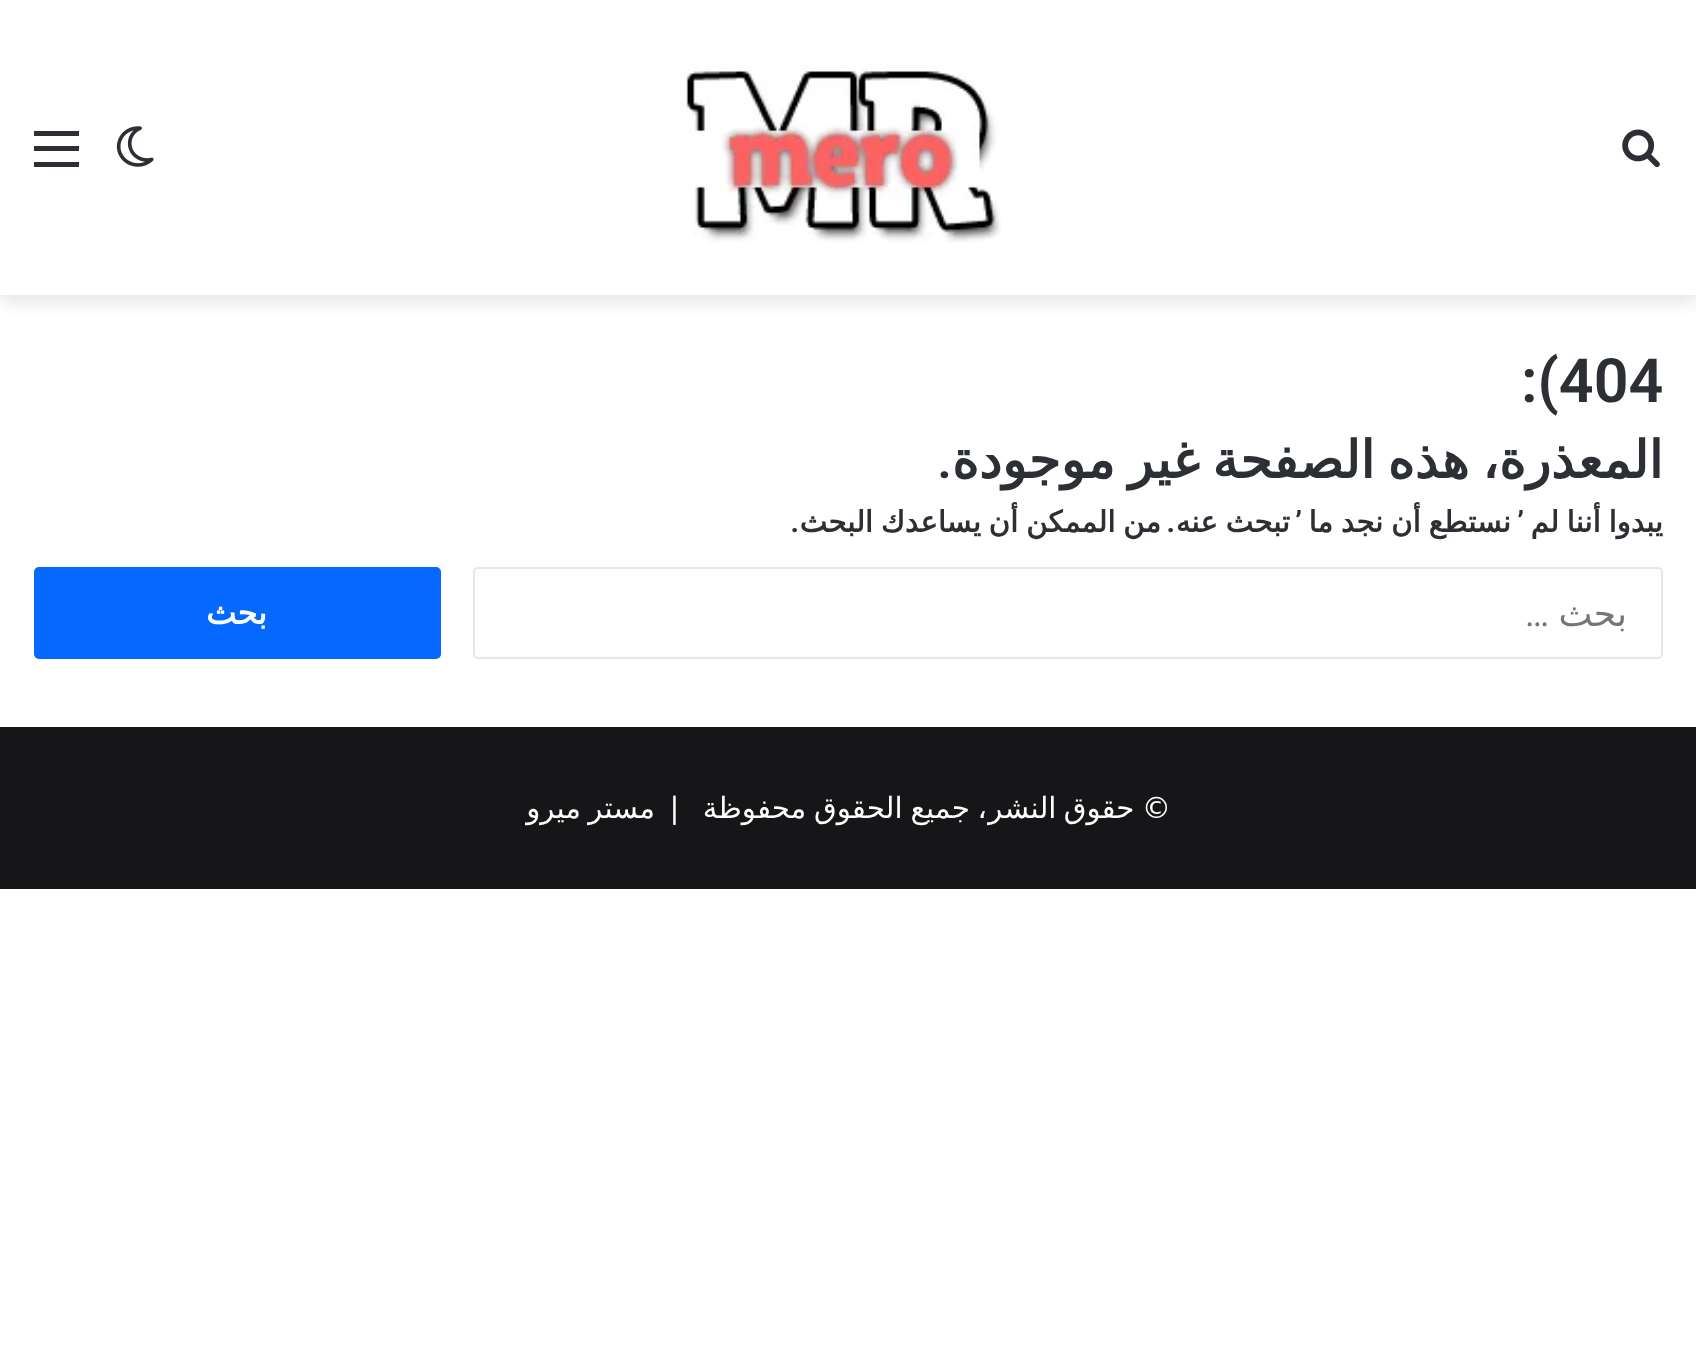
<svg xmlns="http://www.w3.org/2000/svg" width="1696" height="1372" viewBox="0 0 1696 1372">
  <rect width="100%" height="100%" fill="rgb(255,255,255)"/>
  <rect x="0" y="7" width="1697" height="295" fill="rgba(0,0,0,0.1)" filter="blur(8px)"/>
  <rect x="0" y="0" width="1696" height="295" fill="rgb(255,255,255)"/>
  <image x="1622" y="129" width="38" height="39" href="pic1.png"/>
  <image x="686" y="65" width="315" height="178" href="pic2.png"/>
  <image x="116" y="126" width="38" height="41" href="pic3.png"/>
  <rect x="34" y="146" width="45" height="5" fill="rgb(44,47,52)"/>
  <rect x="34" y="131" width="45" height="5" fill="rgb(44,47,52)"/>
  <rect x="34" y="162" width="45" height="5" fill="rgb(44,47,52)"/>
  <text x="1521" y="402" font-family="Roboto" font-size="61" font-weight="600" fill="rgb(44,47,52)">:(404</text>
  <text x="1663" y="478" word-spacing="-3.5" font-family="DejaVu Sans" font-size="51.75" font-weight="bold" direction="rtl" fill="rgb(44,47,52)">المعذرة، هذه الصفحة غير موجودة</text>
  <text x="952" y="478" font-family="Roboto" font-size="51.75" font-weight="600" direction="rtl" fill="rgb(44,47,52)">.</text>
  <text x="1663" y="532" word-spacing="-1.5" font-family="DejaVu Sans" font-size="29.25" font-weight="bold" direction="rtl" fill="rgb(44,47,52)">يبدوا أننا لم</text>
  <text x="1524" y="532" font-family="Roboto" font-size="29.25" font-weight="bold" direction="rtl" fill="rgb(44,47,52)">’</text>
  <text x="1511" y="532" word-spacing="-1.5" font-family="DejaVu Sans" font-size="29.25" font-weight="bold" direction="rtl" fill="rgb(44,47,52)">نستطع أن نجد ما</text>
  <text x="1302" y="532" font-family="Roboto" font-size="29.25" font-weight="bold" direction="rtl" fill="rgb(44,47,52)">’</text>
  <g font-family="DejaVu Sans" font-size="29.25" font-weight="bold" direction="rtl" fill="rgb(44,47,52)">
    <text x="1161" y="532" word-spacing="-1.5">من الممكن أن يساعدك البحث</text>
    <text x="1290" y="532" word-spacing="-1.5">تبحث عنه</text>
  </g>
  <g font-family="Roboto" font-size="29.25" font-weight="bold" direction="rtl" fill="rgb(44,47,52)">
    <text x="1175" y="532">.</text>
    <text x="799" y="532">.</text>
  </g>
  <rect x="474" y="568" width="1188" height="90" rx="4" fill="none" stroke="rgb(230,230,230)" stroke-width="2"/>
  <text x="1627" y="626" font-family="DejaVu Sans" font-size="36" direction="rtl" fill="rgb(117,117,117)">بحث</text>
  <text x="1549" y="626" font-family="Roboto" font-size="36" direction="rtl" fill="rgb(117,117,117)">…</text>
  <rect x="34" y="567" width="407" height="92" rx="5" fill="rgb(6,105,255)"/>
  <text x="267" y="624" font-family="DejaVu Sans" font-size="32" font-weight="bold" direction="rtl" fill="rgb(255,255,255)">بحث</text>
  <rect x="0" y="727" width="1696" height="162" fill="rgb(22,22,25)"/>
  <g font-family="DejaVu Sans" font-size="29.25" direction="rtl" fill="rgb(255,255,255)">
    <text x="1171" y="818" word-spacing="-2">© حقوق النشر</text>
    <text x="987" y="818" word-spacing="-1.5" xml:space="preserve">، جميع الحقوق محفوظة   |</text>
    <text x="655" y="818" word-spacing="-2">مستر ميرو</text>
  </g>
</svg>
